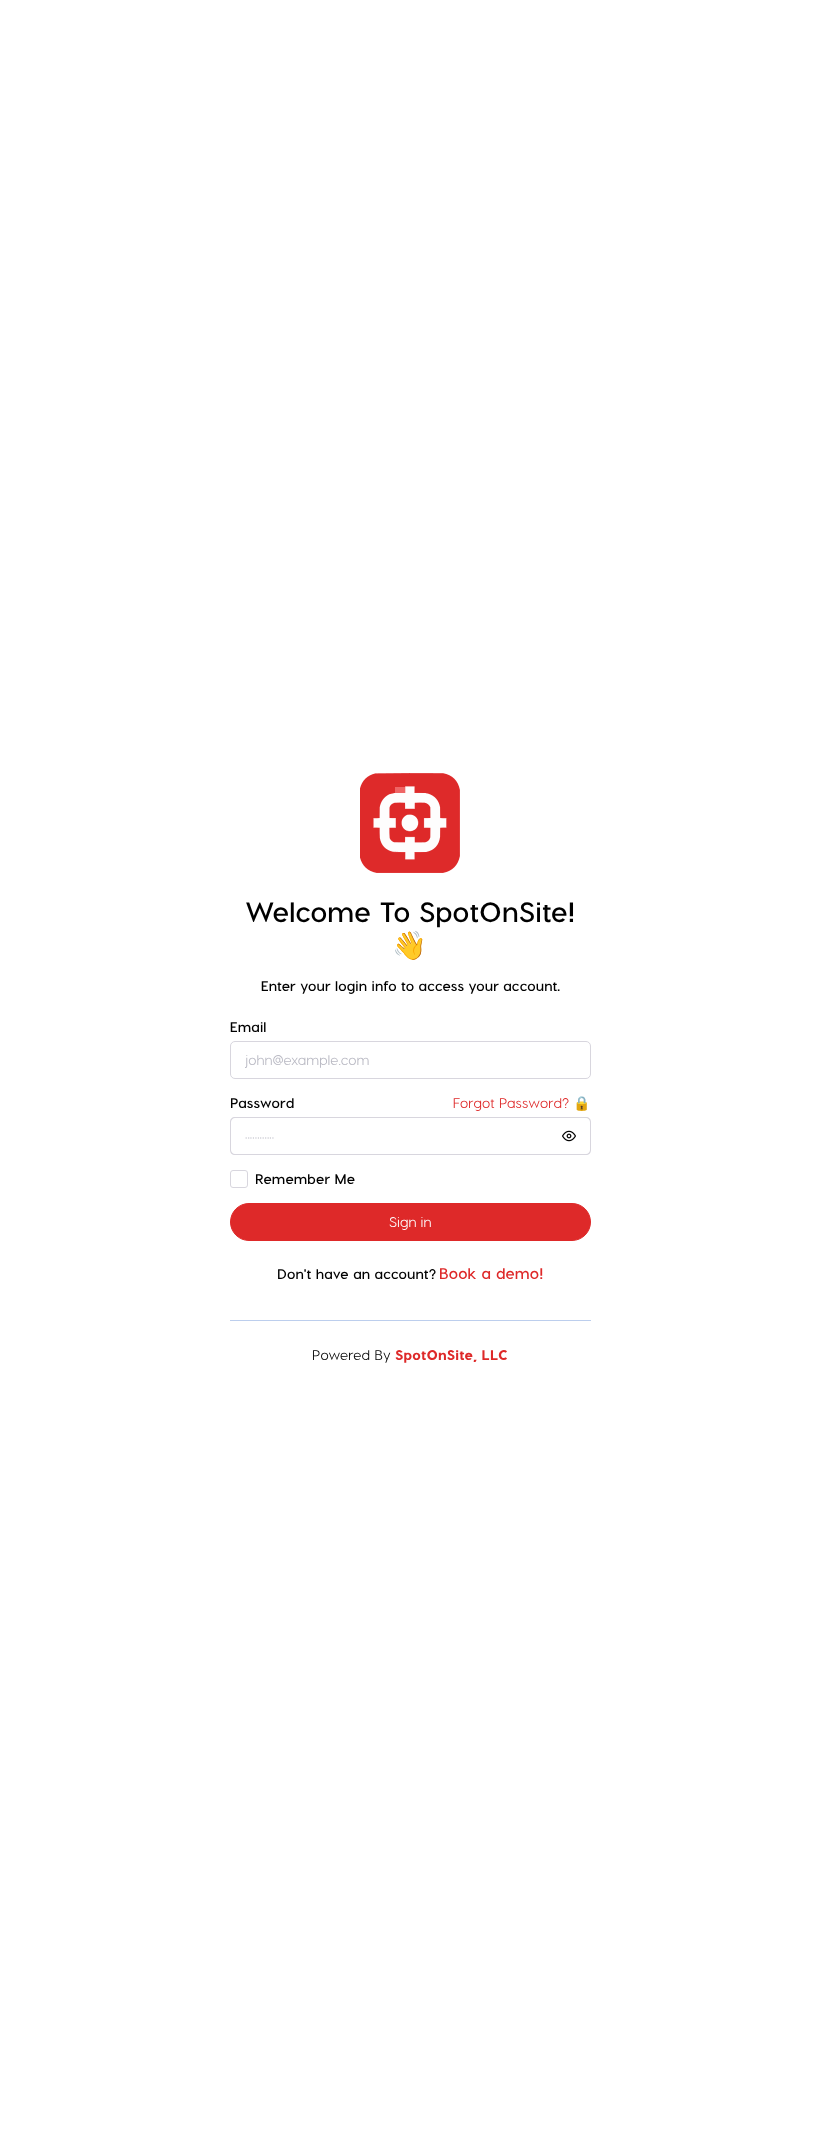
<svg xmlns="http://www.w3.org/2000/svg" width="820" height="2143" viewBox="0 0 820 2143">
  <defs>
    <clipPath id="clip1"><rect x="245" y="1051" width="331" height="17"/></clipPath>
  </defs>
  <rect width="100%" height="100%" fill="rgb(255,255,255)"/>
  <image x="360" y="773" width="100" height="100" href="pic1.png"/>
  <text x="245" y="922" font-family="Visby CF" font-size="28" font-weight="bold" letter-spacing="0.15" fill="rgb(0,0,0)">Welcome To SpotOnSite!</text>
  <text x="392" y="955" font-family="Noto Color Emoji" font-size="28" font-weight="bold" letter-spacing="0.15" fill="rgb(0,0,0)">👋</text>
  <g font-family="Visby CF" font-size="14" font-weight="bold" letter-spacing="0.15" fill="rgb(0,0,0)">
    <text x="261" y="991">Enter your login info to access your account.</text>
    <text x="230" y="1032">Email</text>
  </g>
  <rect x="230.5" y="1041.5" width="360" height="37" rx="4.5" fill="none" stroke="rgb(216,214,222)"/>
  <g clip-path="url(#clip1)">
    <text x="245" y="1065" font-family="Visby CF" font-size="14" font-weight="500" fill="rgb(185,185,195)">john@example.com</text>
  </g>
  <text x="230" y="1108" font-family="Visby CF" font-size="14" font-weight="bold" letter-spacing="0.15" fill="rgb(0,0,0)">Password</text>
  <text x="453" y="1108" font-family="Visby CF" font-size="14" font-weight="500" letter-spacing="0.15" fill="rgb(222,41,41)">Forgot Password?</text>
  <text x="573" y="1108" font-family="Noto Color Emoji" font-size="14" letter-spacing="0.15" fill="rgb(222,41,41)">🔒</text>
  <path d="M548 1117H586C589 1117 591 1119 591 1122V1150C591 1153 589 1155 586 1155H548ZM548 1118H586C588 1118 590 1120 590 1122V1150C590 1152 588 1154 586 1154H548Z" fill="rgb(216,214,222)" fill-rule="evenodd"/>
  <path d="M235 1117H549V1155H235C232 1155 230 1153 230 1150V1122C230 1119 232 1117 235 1117Z" fill="rgb(255,255,255)"/>
  <path d="M235 1117H549V1155H235C232 1155 230 1153 230 1150V1122C230 1119 232 1117 235 1117ZM235 1118H549V1154H235C233 1154 231 1152 231 1150V1122C231 1120 233 1118 235 1118Z" fill="rgb(216,214,222)" fill-rule="evenodd"/>
  <text x="245" y="1142" font-family="Visby CF" font-size="14" font-weight="500" fill="rgb(185,185,195)">············</text>
  <image x="562" y="1130" width="14" height="12" href="pic2.png"/>
  <rect x="230.5" y="1170.5" width="17" height="17" rx="2.5" fill="none" stroke="rgb(216,214,222)"/>
  <text x="255" y="1184" font-family="Visby CF" font-size="14" font-weight="bold" letter-spacing="0.15" fill="rgb(0,0,0)">Remember Me</text>
  <rect x="230.5" y="1203.5" width="360" height="37" rx="18.5" fill="rgb(222,41,41)" stroke="rgb(222,41,41)"/>
  <text x="389" y="1227" font-family="Visby CF" font-size="14" font-weight="500" fill="rgb(255,255,255)">Sign in</text>
  <text x="277" y="1279" font-family="Visby CF" font-size="14" font-weight="bold" letter-spacing="0.15" fill="rgb(0,0,0)">Don't have an account?</text>
  <text x="439" y="1279" font-family="Visby CF" font-size="15.5" font-weight="bold" letter-spacing="0.15" fill="rgb(222,41,41)">Book a demo!</text>
  <rect x="230" y="1320" width="361" height="1" fill="rgb(188,206,237)"/>
  <text x="312" y="1360" font-family="Visby CF" font-size="14" font-weight="500" letter-spacing="0.15" fill="rgb(0,0,0)">Powered By</text>
  <text x="395" y="1360" font-family="Visby CF" font-size="14" font-weight="900" letter-spacing="0.15" fill="rgb(222,41,41)">SpotOnSite, LLC</text>
</svg>
